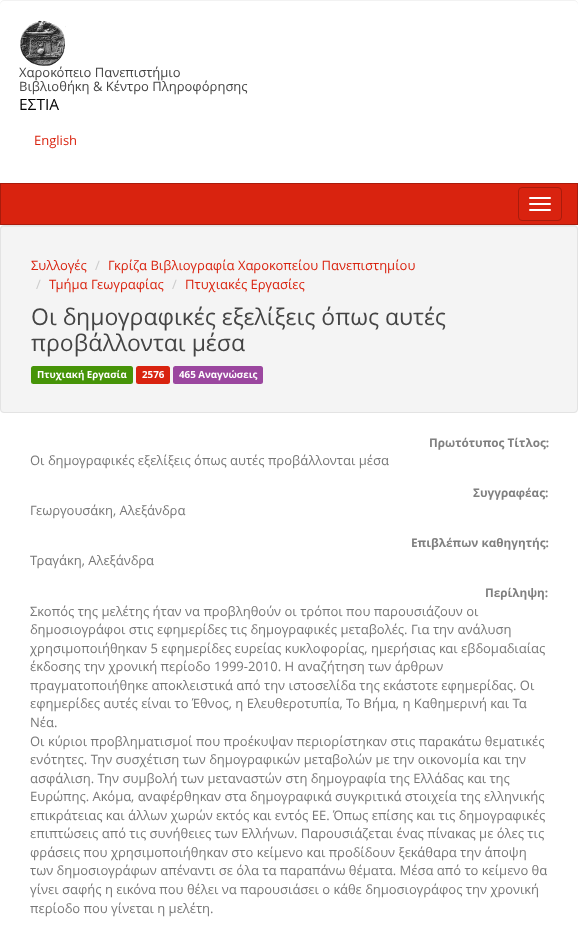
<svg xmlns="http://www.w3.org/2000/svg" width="578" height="932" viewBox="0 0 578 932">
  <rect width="100%" height="100%" fill="rgb(255,255,255)"/>
  <path d="M4 1H574C576 1 578 3 578 5V4C578 2 576 0 574 0H4C2 0 0 2 0 4V5C0 3 2 1 4 1Z" fill="rgb(242,242,242)"/>
  <image x="20" y="20" width="46" height="48" href="pic1.png"/>
  <g font-family="Open Sans" font-size="13" fill="rgb(68,68,68)">
    <text>
      <tspan x="19" y="77">Χαροκόπειο Πανεπιστήμιο</tspan>
      <tspan x="19" y="91">Βιβλιοθήκη &amp; Κέντρο Πληροφόρησης</tspan>
    </text>
  </g>
  <text x="19" y="110" font-family="Open Sans" font-size="15.5" fill="rgb(0,0,0)">ΕΣΤΙΑ</text>
  <text x="34" y="145" font-family="Open Sans" font-size="13" fill="rgb(217,35,15)">English</text>
  <rect x="0.5" y="183.5" width="577" height="41" fill="rgb(217,35,15)" stroke="rgb(169,27,12)"/>
  <rect x="518.5" y="187.5" width="43" height="33" rx="3.5" fill="none" stroke="rgb(169,27,12)"/>
  <rect x="529" y="197" width="22" height="2" rx="1" fill="rgb(255,255,255)"/>
  <rect x="529" y="203" width="22" height="2" rx="1" fill="rgb(255,255,255)"/>
  <rect x="529" y="209" width="22" height="2" rx="1" fill="rgb(255,255,255)"/>
  <rect x="0" y="225" width="578" height="188" rx="4" fill="rgb(244,244,244)"/>
  <path d="M4 227H574C576 227 577 228 577 230V229C577 227 576 226 574 226H4C2 226 1 227 1 229V230C1 228 2 227 4 227Z" fill="rgb(232,232,232)"/>
  <rect x="0.5" y="225.5" width="577" height="187" rx="3.5" fill="none" stroke="rgb(227,227,227)"/>
  <text x="31" y="270" font-family="Open Sans" font-size="13" fill="rgb(217,35,15)">Συλλογές</text>
  <text x="95" y="270" font-family="Open Sans" font-size="13" fill="rgb(204,204,204)">/</text>
  <text x="108" y="270" font-family="Open Sans" font-size="13" fill="rgb(217,35,15)">Γκρίζα Βιβλιογραφία Χαροκοπείου Πανεπιστημίου</text>
  <text x="36" y="289" font-family="Open Sans" font-size="13" fill="rgb(204,204,204)">/</text>
  <text x="49" y="289" font-family="Open Sans" font-size="13" fill="rgb(217,35,15)">Τμήμα Γεωγραφίας</text>
  <text x="172" y="289" font-family="Open Sans" font-size="13" fill="rgb(204,204,204)">/</text>
  <text x="185" y="289" font-family="Open Sans" font-size="13" fill="rgb(217,35,15)">Πτυχιακές Εργασίες</text>
  <g font-family="Open Sans" font-size="23" fill="rgb(68,68,68)">
    <text>
      <tspan x="31" y="325">Οι δημογραφικές εξελίξεις όπως αυτές</tspan>
      <tspan x="31" y="351">προβάλλονται μέσα</tspan>
    </text>
  </g>
  <rect x="31" y="366" width="102" height="18" rx="2.5" fill="rgb(70,148,8)"/>
  <text x="37" y="378" font-family="Open Sans" font-size="9.75" font-weight="bold" fill="rgb(255,255,255)">Πτυχιακή Εργασία</text>
  <rect x="136" y="366" width="34" height="18" rx="2.5" fill="rgb(217,35,15)"/>
  <text x="142" y="378" font-family="Open Sans" font-size="9.75" font-weight="bold" fill="rgb(255,255,255)">2576</text>
  <rect x="173" y="366" width="90" height="18" rx="2.5" fill="rgb(155,71,159)"/>
  <text x="179" y="378" font-family="Open Sans" font-size="9.75" font-weight="bold" fill="rgb(255,255,255)">465 Αναγνώσεις</text>
  <text x="429" y="447" font-family="Open Sans" font-size="11.75" font-weight="bold" fill="rgb(128,128,128)">Πρωτότυπος Τίτλος:</text>
  <text x="30" y="465" font-family="Open Sans" font-size="13" fill="rgb(119,119,119)">Οι δημογραφικές εξελίξεις όπως αυτές προβάλλονται μέσα</text>
  <text x="473" y="497" font-family="Open Sans" font-size="11.75" font-weight="bold" fill="rgb(128,128,128)">Συγγραφέας:</text>
  <text x="30" y="515" font-family="Open Sans" font-size="13" fill="rgb(119,119,119)">Γεωργουσάκη, Αλεξάνδρα</text>
  <text x="411" y="547" font-family="Open Sans" font-size="11.75" font-weight="bold" fill="rgb(128,128,128)">Επιβλέπων καθηγητής:</text>
  <text x="30" y="565" font-family="Open Sans" font-size="13" fill="rgb(119,119,119)">Τραγάκη, Αλεξάνδρα</text>
  <text x="485" y="597" font-family="Open Sans" font-size="11.75" font-weight="bold" fill="rgb(128,128,128)">Περίληψη:</text>
  <g font-family="Open Sans" font-size="13" fill="rgb(119,119,119)">
    <text>
      <tspan x="30" y="616">Σκοπός της μελέτης ήταν να προβληθούν οι τρόποι που παρουσιάζουν οι</tspan>
      <tspan x="30" y="634">δημοσιογράφοι στις εφημερίδες τις δημογραφικές μεταβολές. Για την ανάλυση</tspan>
      <tspan x="30" y="653">χρησιμοποιήθηκαν 5 εφημερίδες ευρείας κυκλοφορίας, ημερήσιας και εβδομαδιαίας</tspan>
      <tspan x="30" y="671">έκδοσης την χρονική περίοδο 1999-2010. Η αναζήτηση των άρθρων</tspan>
      <tspan x="30" y="690">πραγματοποιήθηκε αποκλειστικά από την ιστοσελίδα της εκάστοτε εφημερίδας. Οι</tspan>
      <tspan x="30" y="708">εφημερίδες αυτές είναι το Έθνος, η Ελευθεροτυπία, Το Βήμα, η Καθημερινή και Τα</tspan>
      <tspan x="30" y="727">Νέα.</tspan>
      <tspan x="30" y="746">Οι κύριοι προβληματισμοί που προέκυψαν περιορίστηκαν στις παρακάτω θεματικές</tspan>
      <tspan x="30" y="764">ενότητες. Την συσχέτιση των δημογραφικών μεταβολών με την οικονομία και την</tspan>
      <tspan x="30" y="783">ασφάλιση. Την συμβολή των μεταναστών στη δημογραφία της Ελλάδας και της</tspan>
      <tspan x="30" y="801">Ευρώπης. Ακόμα, αναφέρθηκαν στα δημογραφικά συγκριτικά στοιχεία της ελληνικής</tspan>
      <tspan x="30" y="820">επικράτειας και άλλων χωρών εκτός και εντός ΕΕ. Όπως επίσης και τις δημογραφικές</tspan>
      <tspan x="30" y="838">επιπτώσεις από τις συνήθειες των Ελλήνων. Παρουσιάζεται ένας πίνακας με όλες τις</tspan>
      <tspan x="30" y="857">φράσεις που χρησιμοποιήθηκαν στο κείμενο και προδίδουν ξεκάθαρα την άποψη</tspan>
      <tspan x="30" y="875">των δημοσιογράφων απέναντι σε όλα τα παραπάνω θέματα. Μέσα από το κείμενο θα</tspan>
      <tspan x="30" y="894">γίνει σαφής η εικόνα που θέλει να παρουσιάσει ο κάθε δημοσιογράφος την χρονική</tspan>
      <tspan x="30" y="913">περίοδο που γίνεται η μελέτη.</tspan>
    </text>
  </g>
</svg>
